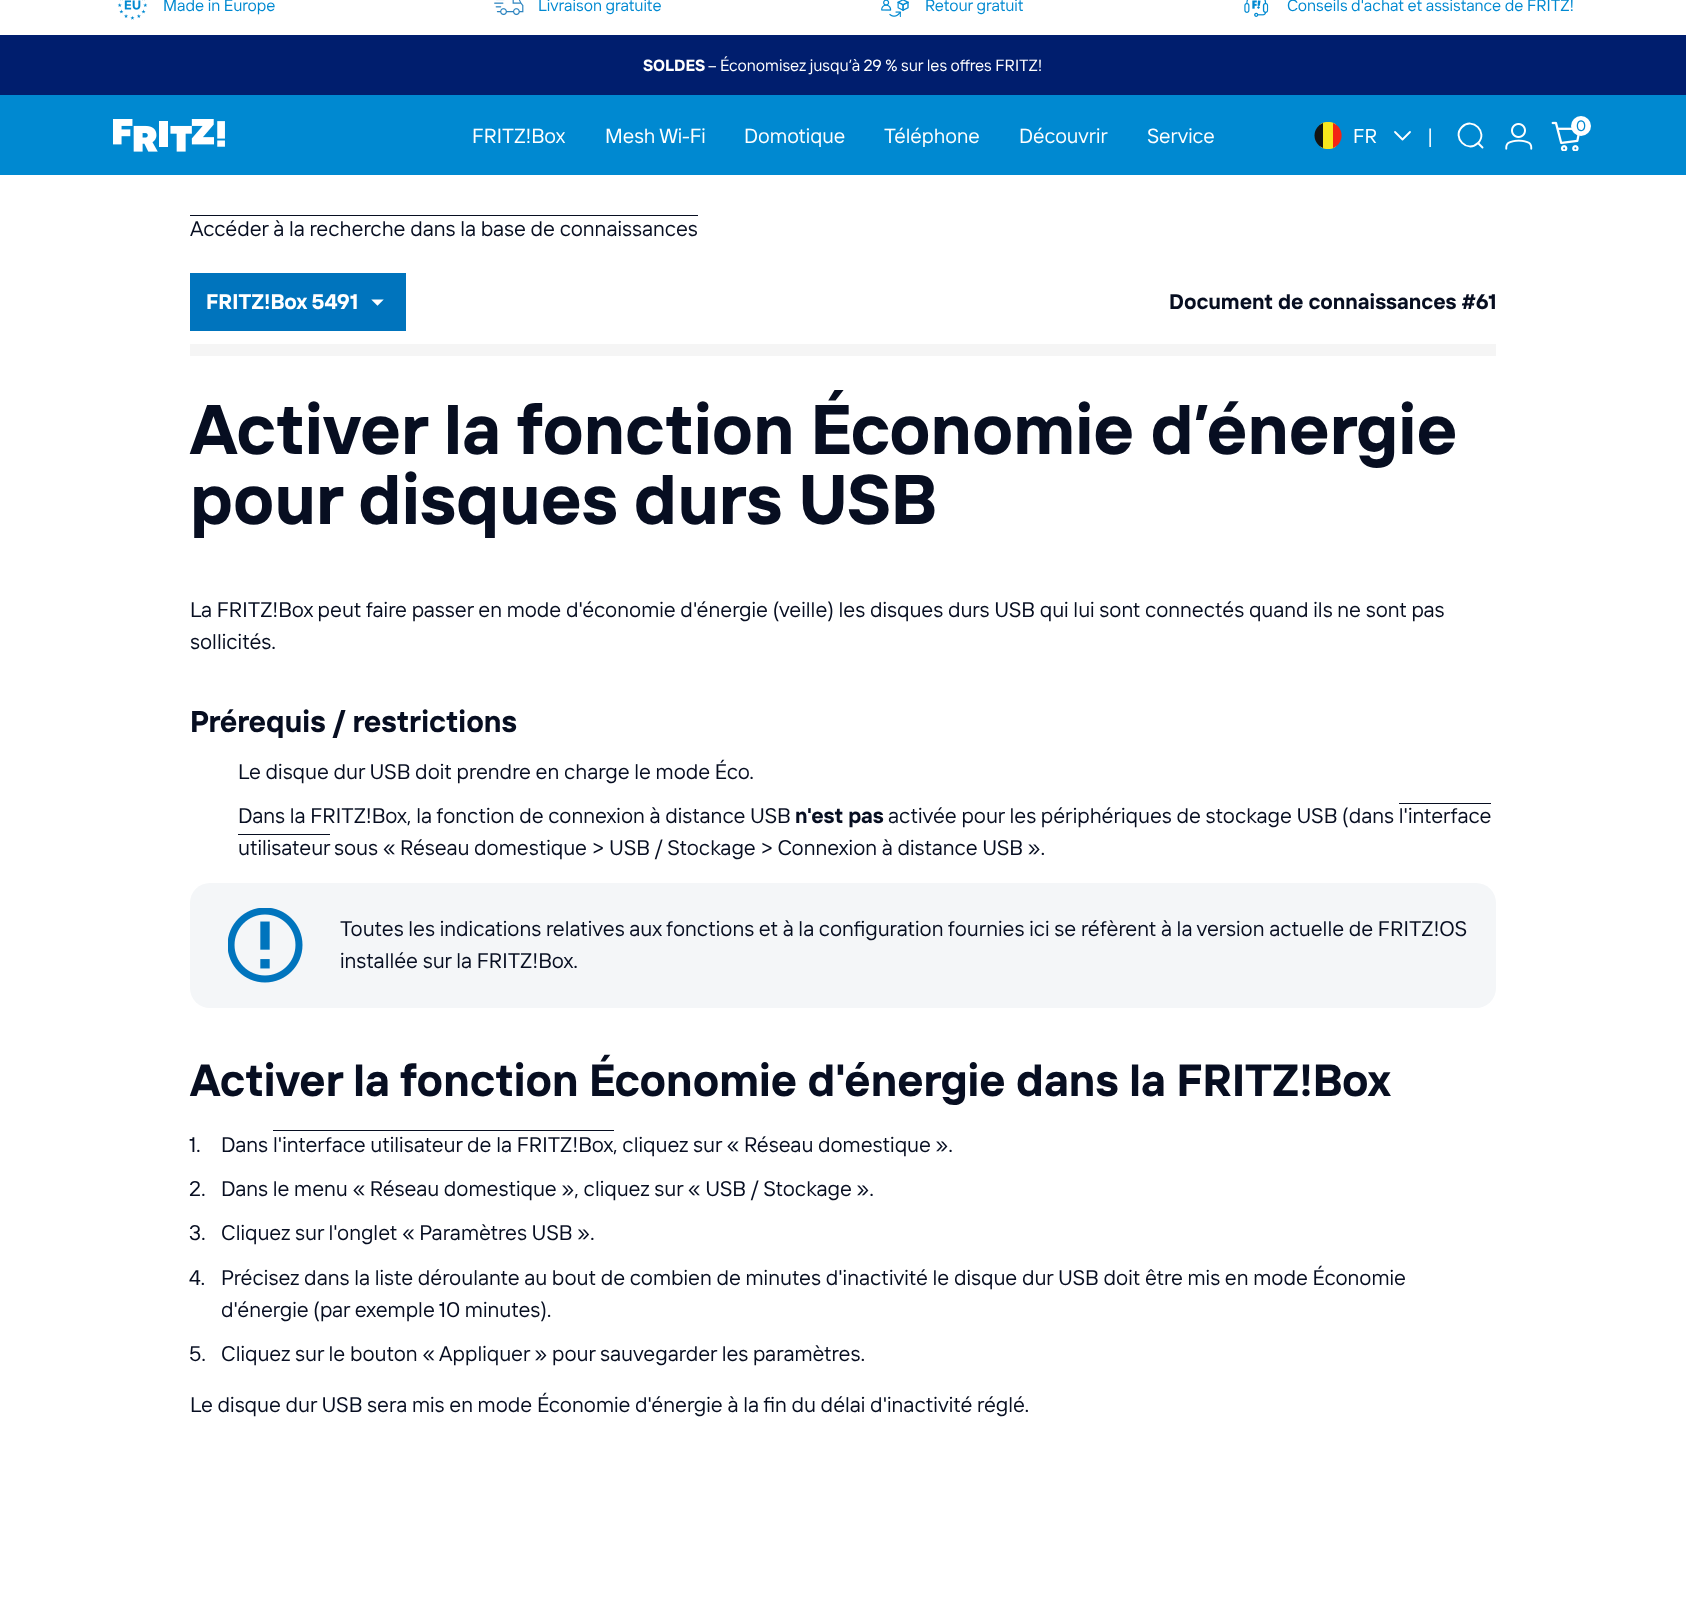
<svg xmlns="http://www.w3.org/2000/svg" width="1686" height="1608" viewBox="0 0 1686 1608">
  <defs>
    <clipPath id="clip1"><rect x="1314" y="122" width="28" height="27"/></clipPath>
  </defs>
  <rect width="100%" height="100%" fill="rgb(255,255,255)"/>
  <image x="117" y="0" width="31" height="20" href="pic1.png"/>
  <text x="163" y="11" font-family="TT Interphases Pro" font-size="16.25" fill="rgb(0,137,209)">Made in Europe</text>
  <image x="494" y="0" width="30" height="16" href="pic2.png"/>
  <text x="538" y="11" font-family="TT Interphases Pro" font-size="16.25" fill="rgb(0,137,209)">Livraison gratuite</text>
  <image x="881" y="0" width="28" height="17" href="pic3.png"/>
  <text x="925" y="11" font-family="TT Interphases Pro" font-size="16.25" fill="rgb(0,137,209)">Retour gratuit</text>
  <image x="1244" y="0" width="25" height="17" href="pic4.png"/>
  <text x="1287" y="11" font-family="TT Interphases Pro" font-size="16.25" fill="rgb(0,137,209)">Conseils d'achat et assistance de FRITZ!</text>
  <rect x="0" y="35" width="1686" height="60" fill="rgb(0,30,110)"/>
  <text x="643" y="71" font-family="TT Interphases Pro" font-size="16.25" font-weight="bold" fill="rgb(255,255,255)">SOLDES</text>
  <text x="708" y="71" font-family="TT Interphases Pro" font-size="16.25" fill="rgb(255,255,255)">– Économisez jusqu’à 29 % sur les offres FRITZ!</text>
  <rect x="0" y="95" width="1686" height="80" fill="rgb(0,137,209)"/>
  <image x="113" y="119" width="112" height="33" href="pic5.png"/>
  <g font-family="TT Interphases Pro" font-size="20.5" fill="rgb(255,255,255)">
    <text x="472" y="143">FRITZ!Box</text>
    <text x="605" y="143">Mesh Wi-Fi</text>
    <text x="744" y="143">Domotique</text>
    <text x="884" y="143">Téléphone</text>
    <text x="1019" y="143">Découvrir</text>
    <text x="1147" y="143">Service</text>
  </g>
  <path d="M1482.5 147.5L1478 143M1478 143C1488.5 132.5 1472.5 116.5 1462 127C1451.5 137.5 1467.5 153.5 1478 143Z" fill="none" stroke="rgb(255,255,255)" stroke-width="1.9" stroke-linecap="round"/>
  <image x="1505" y="123" width="28" height="27" href="pic6.png"/>
  <image x="1551" y="121" width="29" height="30" href="pic7.png"/>
  <circle cx="1581" cy="126" r="10" fill="rgb(255,255,255)"/>
  <text x="1576" y="131" font-family="TT Interphases Pro" font-size="15" fill="rgb(0,137,209)">0</text>
  <g clip-path="url(#clip1)">
    <path d="M1320 146.5V124.5C1324.5 121 1331.5 121 1336 124.5V146.5C1331.5 150 1324.5 150 1320 146.5Z" fill="rgb(248,231,28)"/>
  </g>
  <path d="M1333 148V123C1344.5 127.5 1344.5 143.5 1333 148Z" fill="rgb(243,38,20)"/>
  <path d="M1314.5 135.5C1314.5 130 1318 125 1323 123V148C1318 146 1314.5 141 1314.5 135.5Z" fill="rgb(19,20,19)"/>
  <text x="1353" y="143" font-family="TT Interphases Pro" font-size="20" fill="rgb(255,255,255)">FR</text>
  <path d="M1395 132L1402.5 139.5L1410 132" fill="none" stroke="rgb(255,255,255)" stroke-width="1.8" stroke-linecap="round" stroke-linejoin="round"/>
  <text x="1427" y="143" font-family="TT Interphases Pro" font-size="20" fill="rgb(255,255,255)">|</text>
  <text x="190" y="236" font-family="TT Interphases Pro" font-size="21.25" fill="rgb(7,14,33)">Accéder à la recherche dans la base de connaissances</text>
  <rect x="190" y="215" width="508" height="1" fill="rgb(7,14,33)"/>
  <rect x="190" y="344" width="1306" height="12" fill="rgb(245,245,245)"/>
  <rect x="190" y="273" width="216" height="58" fill="rgb(0,116,189)"/>
  <text x="206" y="309" font-family="TT Interphases Pro" font-size="21.25" font-weight="bold" fill="rgb(255,255,255)">FRITZ!Box 5491</text>
  <image x="371" y="299" width="13" height="7" href="pic8.png"/>
  <text x="1169" y="309" font-family="TT Interphases Pro" font-size="21.25" font-weight="bold" fill="rgb(7,14,33)">Document de connaissances #61</text>
  <g font-family="TT Interphases Pro" font-size="70" font-weight="bold" fill="rgb(7,14,33)">
    <text>
      <tspan x="190" y="454">Activer la fonction Économie d’énergie</tspan>
      <tspan x="190" y="524">pour disques durs USB</tspan>
    </text>
  </g>
  <g font-family="TT Interphases Pro" font-size="21.25" fill="rgb(7,14,33)">
    <text>
      <tspan x="190" y="617">La FRITZ!Box peut faire passer en mode d'économie d'énergie (veille) les disques durs USB qui lui sont connectés quand ils ne sont pas</tspan>
      <tspan x="190" y="649">sollicités.</tspan>
    </text>
  </g>
  <text x="190" y="732" font-family="TT Interphases Pro" font-size="30" font-weight="bold" fill="rgb(7,14,33)">Prérequis / restrictions</text>
  <g font-family="TT Interphases Pro" font-size="21.25" fill="rgb(7,14,33)">
    <text x="238" y="779">Le disque dur USB doit prendre en charge le mode Éco.</text>
    <text x="238" y="823">Dans la FRITZ!Box, la fonction de connexion à distance USB</text>
  </g>
  <text x="795" y="823" font-family="TT Interphases Pro" font-size="21.25" font-weight="bold" fill="rgb(7,14,33)">n'est pas</text>
  <g font-family="TT Interphases Pro" font-size="21.25" fill="rgb(7,14,33)">
    <text x="888" y="823">activée pour les périphériques de stockage USB (dans l'interface</text>
    <text x="238" y="855">utilisateur</text>
  </g>
  <rect x="1399" y="803" width="92" height="1" fill="rgb(7,14,33)"/>
  <rect x="238" y="834" width="92" height="1" fill="rgb(7,14,33)"/>
  <text x="334" y="855" font-family="TT Interphases Pro" font-size="21.25" fill="rgb(7,14,33)">sous « Réseau domestique &gt; USB / Stockage &gt; Connexion à distance USB ».</text>
  <rect x="190" y="883" width="1306" height="125" rx="20" fill="rgb(244,246,248)"/>
  <image x="228" y="908" width="75" height="75" href="pic9.png"/>
  <g font-family="TT Interphases Pro" font-size="21.25" fill="rgb(7,14,33)">
    <text>
      <tspan x="340" y="936">Toutes les indications relatives aux fonctions et à la configuration fournies ici se réfèrent à la version actuelle de FRITZ!OS</tspan>
      <tspan x="340" y="968">installée sur la FRITZ!Box.</tspan>
    </text>
  </g>
  <text x="190" y="1096" font-family="TT Interphases Pro" font-size="45" font-weight="bold" fill="rgb(7,14,33)">Activer la fonction Économie d'énergie dans la FRITZ!Box</text>
  <g font-family="TT Interphases Pro" font-size="21.25" fill="rgb(7,14,33)">
    <text x="189" y="1152">1.</text>
    <text x="221" y="1152">Dans</text>
    <text x="613" y="1152">, cliquez sur « Réseau domestique ».</text>
    <text x="273" y="1152">l'interface utilisateur de la FRITZ!Box</text>
  </g>
  <rect x="273" y="1130" width="341" height="1" fill="rgb(7,14,33)"/>
  <g font-family="TT Interphases Pro" font-size="21.25" fill="rgb(7,14,33)">
    <text x="189" y="1196">2.</text>
    <text x="221" y="1196">Dans le menu « Réseau domestique », cliquez sur « USB / Stockage ».</text>
    <text x="189" y="1240">3.</text>
    <text x="221" y="1240">Cliquez sur l'onglet « Paramètres USB ».</text>
    <text x="189" y="1285">4.</text>
    <text>
      <tspan x="221" y="1285">Précisez dans la liste déroulante au bout de combien de minutes d'inactivité le disque dur USB doit être mis en mode Économie</tspan>
      <tspan x="221" y="1317">d'énergie (par exemple 10 minutes).</tspan>
    </text>
    <text x="189" y="1361">5.</text>
    <text x="221" y="1361">Cliquez sur le bouton « Appliquer » pour sauvegarder les paramètres.</text>
    <text x="190" y="1412">Le disque dur USB sera mis en mode Économie d'énergie à la fin du délai d'inactivité réglé.</text>
  </g>
</svg>
